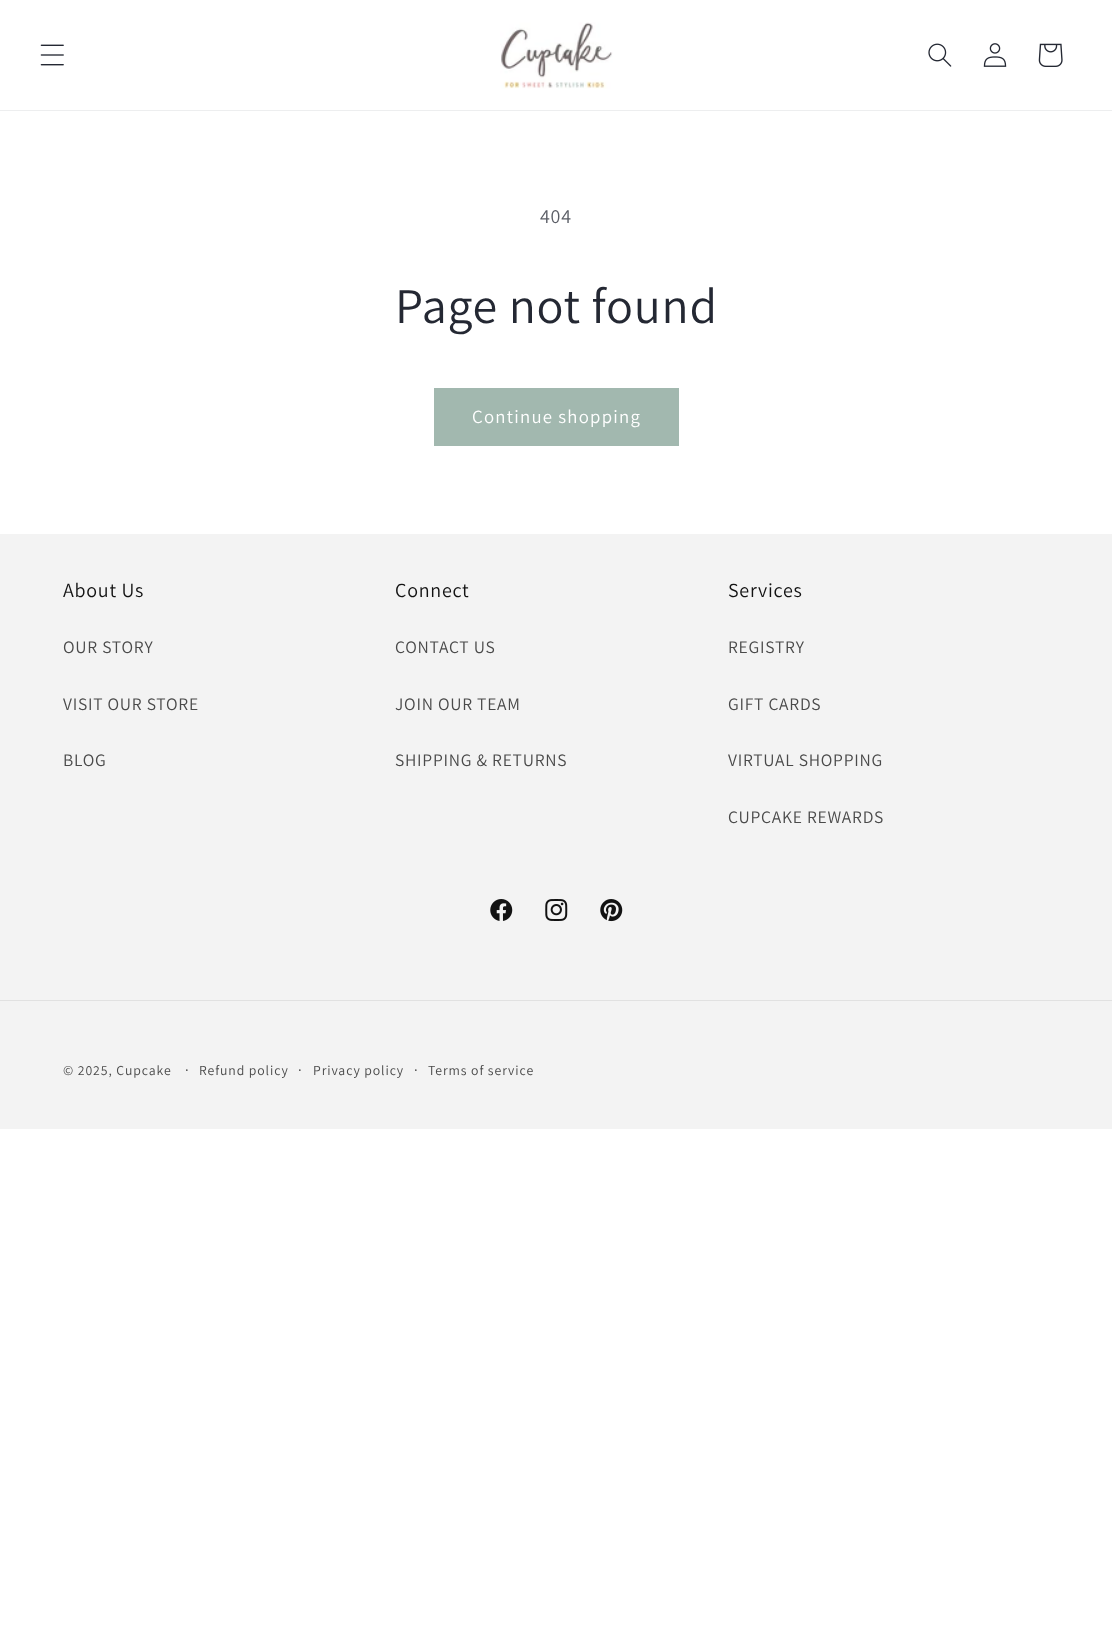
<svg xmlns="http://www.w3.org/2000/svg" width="1112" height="1641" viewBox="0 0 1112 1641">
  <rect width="100%" height="100%" fill="rgb(255,255,255)"/>
  <rect x="0" y="110" width="1112" height="1" fill="rgb(237,238,239)"/>
  <image x="40" y="44" width="24" height="22" href="pic1.png"/>
  <image x="500" y="22" width="113" height="67" href="pic2.png"/>
  <image x="928" y="43" width="24" height="24" href="pic3.png"/>
  <image x="983" y="43" width="24" height="24" href="pic4.png"/>
  <image x="1038" y="43" width="25" height="24" href="pic5.png"/>
  <text x="540" y="223" font-family="Assistant" font-size="20" letter-spacing="0.75" fill="rgb(91,94,102)">404</text>
  <text x="395" y="323" font-family="Assistant" font-size="50" letter-spacing="0.75" fill="rgb(36,40,51)">Page not found</text>
  <rect x="434" y="388" width="245" height="58" fill="rgb(162,184,175)"/>
  <text x="472" y="423" font-family="Assistant" font-size="18.75" letter-spacing="1.25" fill="rgb(255,255,255)">Continue shopping</text>
  <rect x="0" y="534" width="1112" height="595" fill="rgb(243,243,243)"/>
  <text x="63" y="597" font-family="Assistant" font-size="20" letter-spacing="0.75" fill="rgb(18,18,18)">About Us</text>
  <g font-family="Assistant" font-size="17.5" letter-spacing="0.75" fill="rgb(74,74,74)">
    <text x="63" y="653">OUR STORY</text>
    <text x="63" y="710">VISIT OUR STORE</text>
    <text x="63" y="766">BLOG</text>
  </g>
  <text x="395" y="597" font-family="Assistant" font-size="20" letter-spacing="0.75" fill="rgb(18,18,18)">Connect</text>
  <g font-family="Assistant" font-size="17.5" letter-spacing="0.75" fill="rgb(74,74,74)">
    <text x="395" y="653">CONTACT US</text>
    <text x="395" y="710">JOIN OUR TEAM</text>
    <text x="395" y="766">SHIPPING &amp; RETURNS</text>
  </g>
  <text x="728" y="597" font-family="Assistant" font-size="20" letter-spacing="0.75" fill="rgb(18,18,18)">Services</text>
  <g font-family="Assistant" font-size="17.5" letter-spacing="0.75" fill="rgb(74,74,74)">
    <text x="728" y="653">REGISTRY</text>
    <text x="728" y="710">GIFT CARDS</text>
    <text x="728" y="766">VIRTUAL SHOPPING</text>
    <text x="728" y="823">CUPCAKE REWARDS</text>
  </g>
  <image x="490" y="899" width="23" height="22" href="pic6.png"/>
  <image x="545" y="899" width="23" height="22" href="pic7.png"/>
  <image x="600" y="899" width="23" height="23" href="pic8.png"/>
  <rect x="0" y="1000" width="1112" height="1" fill="rgb(225,225,225)"/>
  <text x="63" y="1075" font-family="Assistant" font-size="13.75" letter-spacing="0.9" fill="rgb(74,74,74)">© 2025, Cupcake</text>
  <text x="185" y="1075" font-family="Assistant" font-size="15" letter-spacing="0.9" fill="rgb(74,74,74)">·</text>
  <text x="199" y="1075" font-family="Assistant" font-size="13.75" letter-spacing="0.9" fill="rgb(74,74,74)">Refund policy</text>
  <text x="298" y="1075" font-family="Assistant" font-size="15" letter-spacing="0.9" fill="rgb(74,74,74)">·</text>
  <text x="313" y="1075" font-family="Assistant" font-size="13.75" letter-spacing="0.9" fill="rgb(74,74,74)">Privacy policy</text>
  <text x="414" y="1075" font-family="Assistant" font-size="15" letter-spacing="0.9" fill="rgb(74,74,74)">·</text>
  <text x="428" y="1075" font-family="Assistant" font-size="13.75" letter-spacing="0.9" fill="rgb(74,74,74)">Terms of service</text>
</svg>
